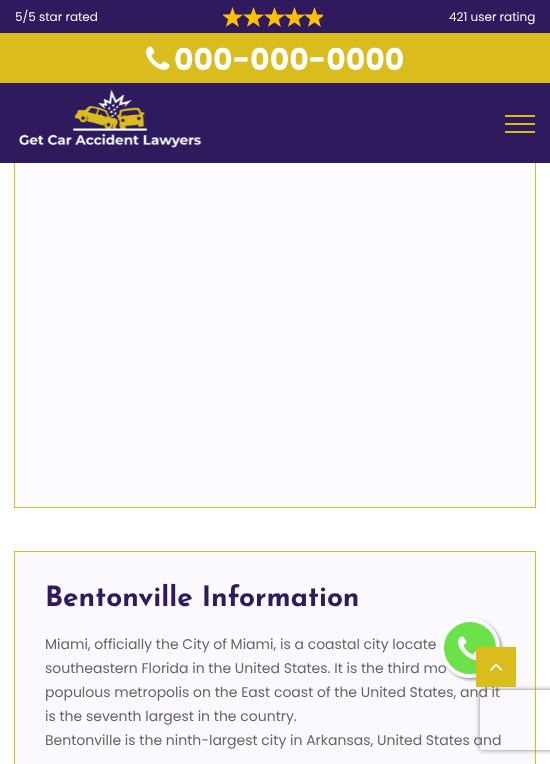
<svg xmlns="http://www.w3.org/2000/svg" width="550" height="764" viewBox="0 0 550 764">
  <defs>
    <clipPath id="clip1"><path d="M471 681H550V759H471ZM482 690H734C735 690 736 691 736 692V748C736 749 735 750 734 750H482C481 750 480 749 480 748V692C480 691 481 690 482 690Z" clip-rule="evenodd"/></clipPath>
  </defs>
  <rect width="100%" height="100%" fill="rgb(255,255,255)"/>
  <rect x="14" y="-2" width="522" height="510" fill="rgb(218,189,29)" filter="blur(0.5px)"/>
  <rect x="0" y="0" width="550" height="163" fill="rgb(46,26,93)"/>
  <text x="15" y="21" font-family="Poppins" font-size="12" fill="rgb(248,249,250)">5/5 star rated</text>
  <image x="223" y="7" width="100" height="20" href="pic1.png"/>
  <text x="449" y="21" font-family="Poppins" font-size="12" fill="rgb(248,249,250)">421 user rating</text>
  <rect x="0" y="33" width="550" height="50" fill="rgb(218,189,29)"/>
  <image x="146" y="46" width="24" height="24" href="pic2.png"/>
  <text x="174" y="70" font-family="Poppins" font-size="30" font-weight="bold" fill="rgb(255,255,255)">000-000-0000</text>
  <image x="19" y="90" width="183" height="58" href="pic3.png"/>
  <rect x="505" y="115" width="30" height="2" fill="rgb(218,189,29)"/>
  <rect x="505" y="123" width="30" height="2" fill="rgb(218,189,29)"/>
  <rect x="505" y="131" width="30" height="2" fill="rgb(218,189,29)"/>
  <rect x="15" y="163" width="520" height="344" fill="rgb(251,250,254)"/>
  <rect x="14" y="551" width="522" height="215" fill="rgb(218,189,29)" filter="blur(0.5px)"/>
  <rect x="15" y="552" width="520" height="212" fill="rgb(251,249,254)"/>
  <text x="45" y="606" font-family="Josefin Sans" font-size="28" font-weight="bold" fill="rgb(46,26,93)">Bentonville Information</text>
  <g font-family="Poppins" font-size="14" fill="rgb(102,102,102)">
    <text>
      <tspan x="45" y="649">Miami, officially the City of Miami, is a coastal city locate</tspan>
      <tspan x="45" y="673">southeastern Florida in the United States. It is the third mo</tspan>
      <tspan x="45" y="697">populous metropolis on the East coast of the United States, and it</tspan>
      <tspan x="45" y="721">is the seventh largest in the country.</tspan>
      <tspan x="45" y="745">Bentonville is the ninth-largest city in Arkansas, United States and</tspan>
    </text>
  </g>
  <g clip-path="url(#clip1)">
    <rect x="480" y="690" width="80" height="60" rx="2" fill="rgb(128,128,128)" filter="blur(2.5px)"/>
  </g>
  <rect x="442" y="620" width="60" height="60" rx="30" fill="rgb(153,153,153)" filter="blur(1.5px)"/>
  <circle cx="470" cy="648" r="28" fill="rgb(107,226,74)" stroke="rgb(255,255,255)" stroke-width="4"/>
  <image x="458" y="636" width="18" height="24" href="pic4.png"/>
  <rect x="476" y="647" width="40" height="40" fill="rgb(218,189,29)"/>
  <image x="490" y="663" width="13" height="8" href="pic5.png"/>
</svg>
